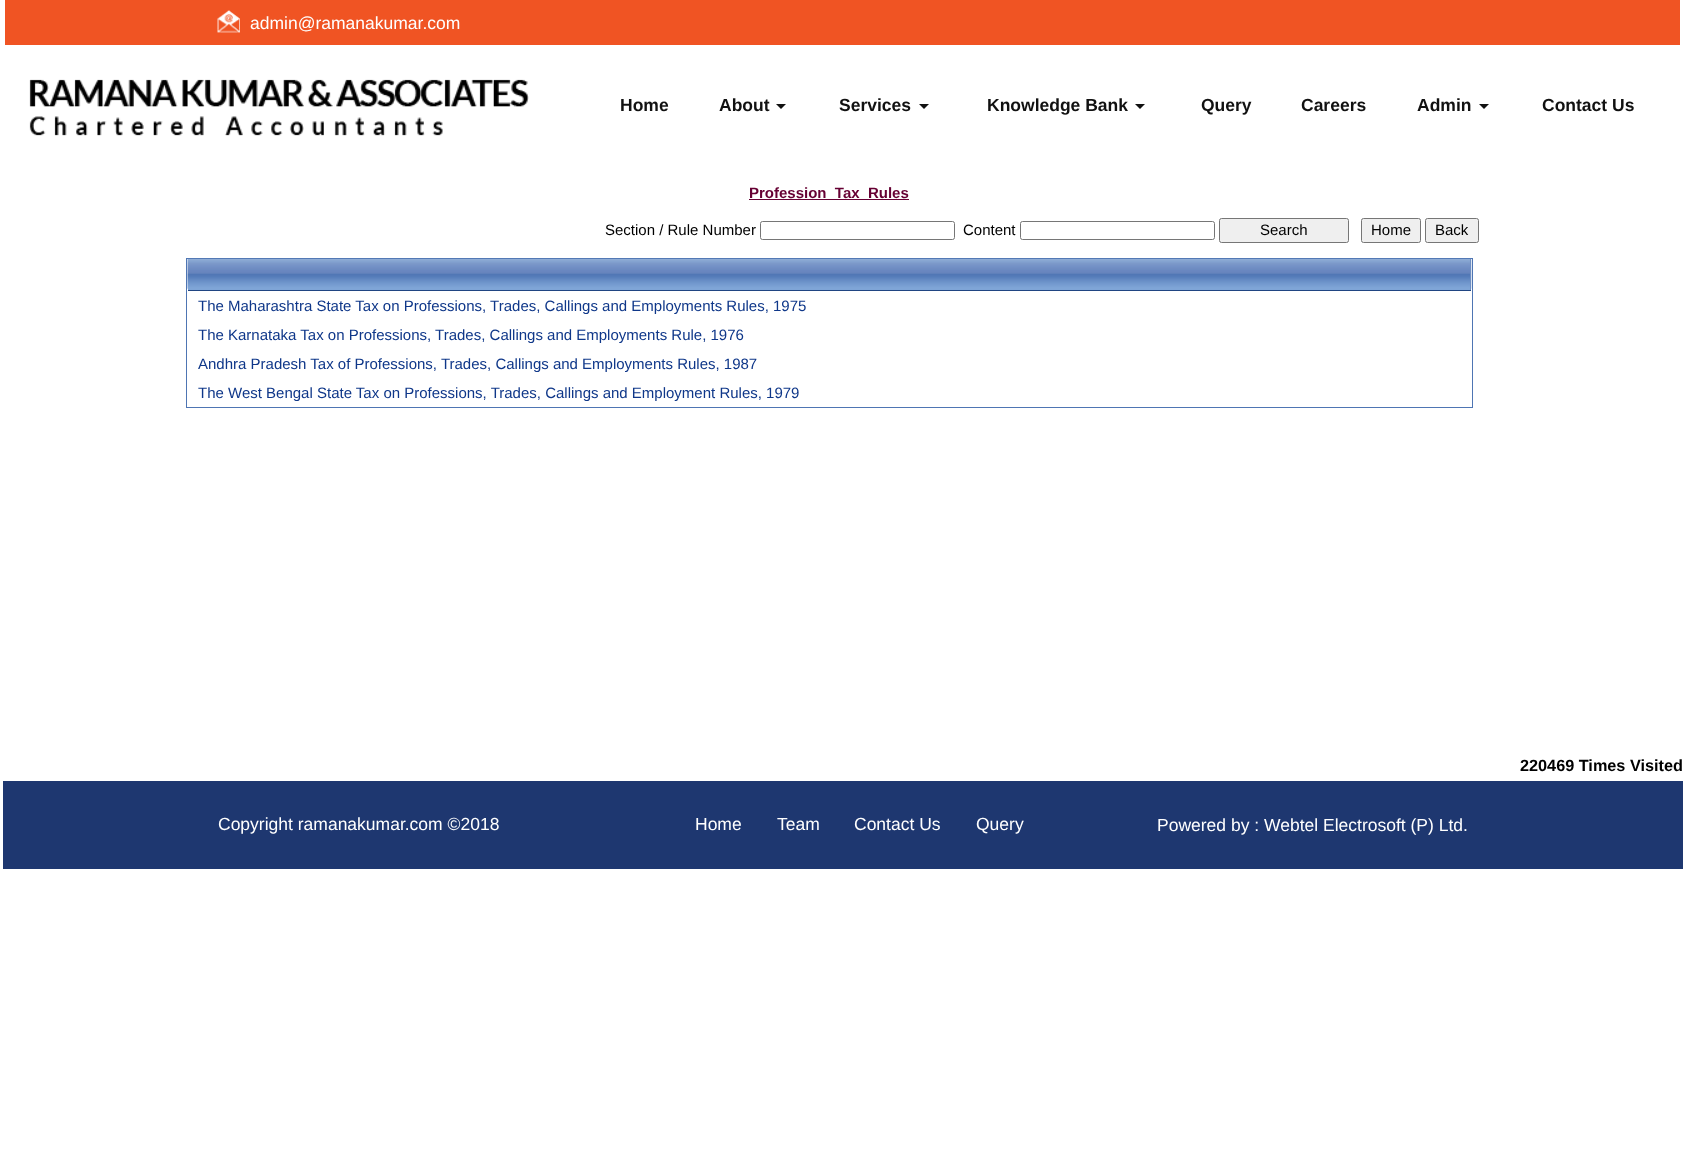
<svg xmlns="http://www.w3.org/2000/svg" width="1685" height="1149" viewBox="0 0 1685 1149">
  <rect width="100%" height="100%" fill="rgb(255,255,255)"/>
  <rect x="5" y="0" width="1675" height="45" fill="rgb(240,84,35)"/>
  <image x="217" y="10" width="23" height="23" href="pic1.png"/>
  <text x="250" y="29" font-family="Liberation Sans" font-size="17.5" fill="rgb(255,255,255)">admin@ramanakumar.com</text>
  <image x="29" y="79" width="500" height="57" href="pic2.png"/>
  <g font-family="Liberation Sans" font-size="17.5" font-weight="bold" fill="rgb(17,17,17)">
    <text x="620" y="111">Home</text>
    <text x="719" y="111">About</text>
  </g>
  <path d="M776 104H786L781 109Z" fill="rgb(17,17,17)"/>
  <text x="839" y="111" font-family="Liberation Sans" font-size="17.5" font-weight="bold" fill="rgb(17,17,17)">Services</text>
  <path d="M919 104H929L924 109Z" fill="rgb(17,17,17)"/>
  <text x="987" y="111" font-family="Liberation Sans" font-size="17.5" font-weight="bold" fill="rgb(17,17,17)">Knowledge Bank</text>
  <path d="M1135 104H1145L1140 109Z" fill="rgb(17,17,17)"/>
  <g font-family="Liberation Sans" font-size="17.5" font-weight="bold" fill="rgb(17,17,17)">
    <text x="1201" y="111">Query</text>
    <text x="1301" y="111">Careers</text>
    <text x="1417" y="111">Admin</text>
  </g>
  <path d="M1479 104H1489L1484 109Z" fill="rgb(17,17,17)"/>
  <text x="1542" y="111" font-family="Liberation Sans" font-size="17.5" font-weight="bold" fill="rgb(17,17,17)">Contact Us</text>
  <rect x="749" y="199" width="160" height="1" fill="rgb(102,0,51)"/>
  <text x="749" y="198" font-family="Liberation Sans" font-size="15" font-weight="bold" fill="rgb(102,0,51)">Profession_Tax_Rules</text>
  <text x="605" y="235" font-family="Liberation Sans" font-size="15" fill="rgb(0,0,0)">Section / Rule Number</text>
  <rect x="760.5" y="221.5" width="194" height="18" rx="2" fill="none" stroke="rgb(118,118,118)"/>
  <text x="963" y="235" font-family="Liberation Sans" font-size="15" fill="rgb(0,0,0)">Content</text>
  <rect x="1020.5" y="221.5" width="194" height="18" rx="2" fill="none" stroke="rgb(118,118,118)"/>
  <rect x="1219.5" y="218.5" width="129" height="24" rx="2" fill="rgb(239,239,239)" stroke="rgb(118,118,118)"/>
  <text x="1260" y="235" font-family="Liberation Sans" font-size="15" fill="rgb(0,0,0)">Search</text>
  <rect x="1361.5" y="218.5" width="59" height="24" rx="2" fill="rgb(239,239,239)" stroke="rgb(118,118,118)"/>
  <text x="1371" y="235" font-family="Liberation Sans" font-size="15" fill="rgb(0,0,0)">Home</text>
  <rect x="1425.5" y="218.5" width="53" height="24" rx="2" fill="rgb(239,239,239)" stroke="rgb(118,118,118)"/>
  <text x="1435" y="235" font-family="Liberation Sans" font-size="15" fill="rgb(0,0,0)">Back</text>
  <rect x="186.5" y="258.5" width="1286" height="149" fill="none" stroke="rgb(78,117,179)"/>
  <rect x="188" y="288" width="1282" height="2" fill="rgb(127,165,215)"/>
  <image x="187" y="258" width="1285" height="31" href="pic3.png"/>
  <rect x="1470" y="259" width="1" height="32" fill="rgb(110,142,194)"/>
  <rect x="188" y="290" width="1283" height="1" fill="rgb(32,69,130)"/>
  <g font-family="Liberation Sans" font-size="15" fill="rgb(15,55,137)">
    <text>
      <tspan x="198" y="311">The Maharashtra State Tax on Professions, Trades, Callings and Employments Rules, 1975</tspan>
      <tspan x="198" y="340">The Karnataka Tax on Professions, Trades, Callings and Employments Rule, 1976</tspan>
      <tspan x="198" y="369">Andhra Pradesh Tax of Professions, Trades, Callings and Employments Rules, 1987</tspan>
      <tspan x="198" y="398">The West Bengal State Tax on Professions, Trades, Callings and Employment Rules, 1979</tspan>
    </text>
  </g>
  <text x="1520" y="771" font-family="Liberation Sans" font-size="16.25" font-weight="bold" fill="rgb(0,0,0)">220469 Times Visited</text>
  <rect x="3" y="781" width="1680" height="88" fill="rgb(30,55,112)"/>
  <g font-family="Liberation Sans" font-size="17.5" fill="rgb(255,255,255)">
    <text x="218" y="830">Copyright ramanakumar.com ©2018</text>
    <text x="695" y="830">Home</text>
    <text x="777" y="830">Team</text>
    <text x="854" y="830">Contact Us</text>
    <text x="976" y="830">Query</text>
    <text x="1157" y="831">Powered by : Webtel Electrosoft (P) Ltd.</text>
  </g>
</svg>
